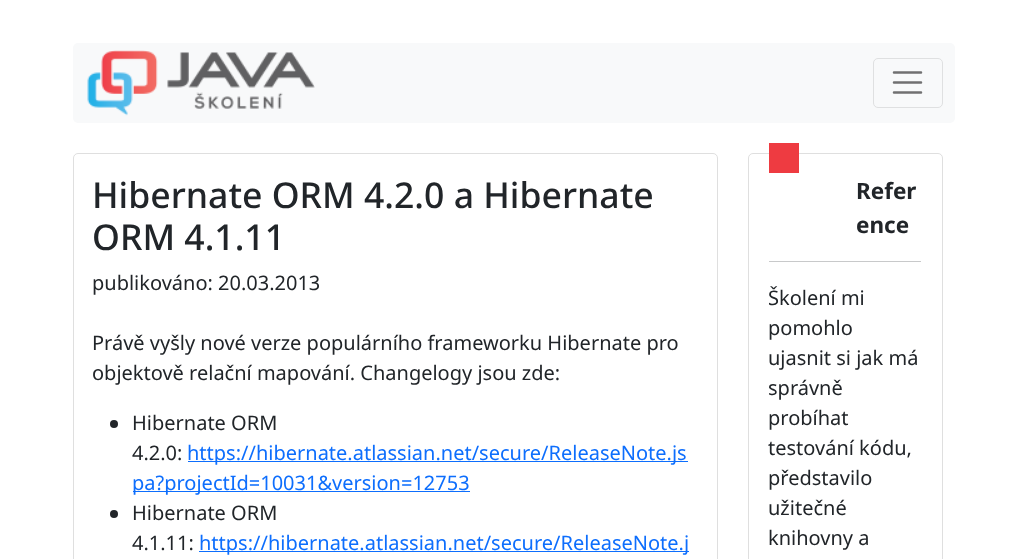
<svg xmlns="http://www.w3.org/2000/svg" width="1013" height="559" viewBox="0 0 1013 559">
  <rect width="100%" height="100%" fill="rgb(255,255,255)"/>
  <rect x="73" y="43" width="882" height="80" rx="5" fill="rgb(248,249,250)"/>
  <image x="87" y="50" width="228" height="66" href="pic1.png"/>
  <rect x="873.5" y="58.5" width="69" height="49" rx="4.5" fill="none" stroke="rgb(223,224,225)"/>
  <path d="M894 72.5H921M894 82.5H921M894 92.5H921" fill="none" stroke="rgb(112,112,113)" stroke-width="2.5" stroke-linecap="round"/>
  <rect x="73.5" y="153.5" width="644" height="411" rx="4.5" fill="none" stroke="rgb(223,223,223)"/>
  <g font-family="Noto Sans" font-size="35.6" font-weight="500" fill="rgb(33,37,41)">
    <text>
      <tspan x="92" y="208">Hibernate ORM 4.2.0 a Hibernate</tspan>
      <tspan x="92" y="250">ORM 4.1.11</tspan>
    </text>
  </g>
  <g font-family="Noto Sans" font-size="20" fill="rgb(33,37,41)">
    <text x="92" y="290">publikováno: 20.03.2013</text>
    <text>
      <tspan x="92" y="350">Právě vyšly nové verze populárního frameworku Hibernate pro</tspan>
      <tspan x="92" y="380">objektově relační mapování. Changelogy jsou zde:</tspan>
    </text>
  </g>
  <circle cx="114" cy="424" r="4" fill="rgb(33,37,41)"/>
  <g font-family="Noto Sans" font-size="20" fill="rgb(33,37,41)">
    <text>
      <tspan x="132" y="430">Hibernate ORM</tspan>
      <tspan x="132" y="460">4.2.0:</tspan>
    </text>
  </g>
  <rect x="188" y="461" width="500" height="1" fill="rgb(13,110,253)"/>
  <text x="187" y="460" font-family="Noto Sans" font-size="20" fill="rgb(13,110,253)">https://hibernate.atlassian.net/secure/ReleaseNote.js</text>
  <rect x="133" y="491" width="337" height="1" fill="rgb(13,110,253)"/>
  <text x="132" y="490" font-family="Noto Sans" font-size="20" fill="rgb(13,110,253)">pa?projectId=10031&amp;version=12753</text>
  <circle cx="114" cy="514" r="4" fill="rgb(33,37,41)"/>
  <g font-family="Noto Sans" font-size="20" fill="rgb(33,37,41)">
    <text>
      <tspan x="132" y="520">Hibernate ORM</tspan>
      <tspan x="132" y="550">4.1.11:</tspan>
    </text>
  </g>
  <rect x="199" y="551" width="490" height="1" fill="rgb(13,110,253)"/>
  <text x="199" y="550" font-family="Noto Sans" font-size="20" fill="rgb(13,110,253)">https://hibernate.atlassian.net/secure/ReleaseNote.j</text>
  <rect x="748.5" y="153.5" width="194" height="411" rx="4.5" fill="none" stroke="rgb(223,223,223)"/>
  <rect x="769" y="143" width="30" height="30" fill="rgb(238,59,65)"/>
  <g font-family="Noto Sans" font-size="22.5" font-weight="bold" fill="rgb(33,37,41)">
    <text>
      <tspan x="856" y="199">Refer</tspan>
      <tspan x="856" y="233">ence</tspan>
    </text>
  </g>
  <rect x="769" y="261" width="152" height="1" fill="rgb(200,201,202)"/>
  <g font-family="Noto Sans" font-size="20" fill="rgb(33,37,41)">
    <text>
      <tspan x="768" y="305">Školení mi</tspan>
      <tspan x="768" y="335">pomohlo</tspan>
      <tspan x="768" y="365">ujasnit si jak má</tspan>
      <tspan x="768" y="395">správně</tspan>
      <tspan x="768" y="425">probíhat</tspan>
      <tspan x="768" y="455">testování kódu,</tspan>
      <tspan x="768" y="485">představilo</tspan>
      <tspan x="768" y="515">užitečné</tspan>
      <tspan x="768" y="545">knihovny a</tspan>
    </text>
  </g>
</svg>
